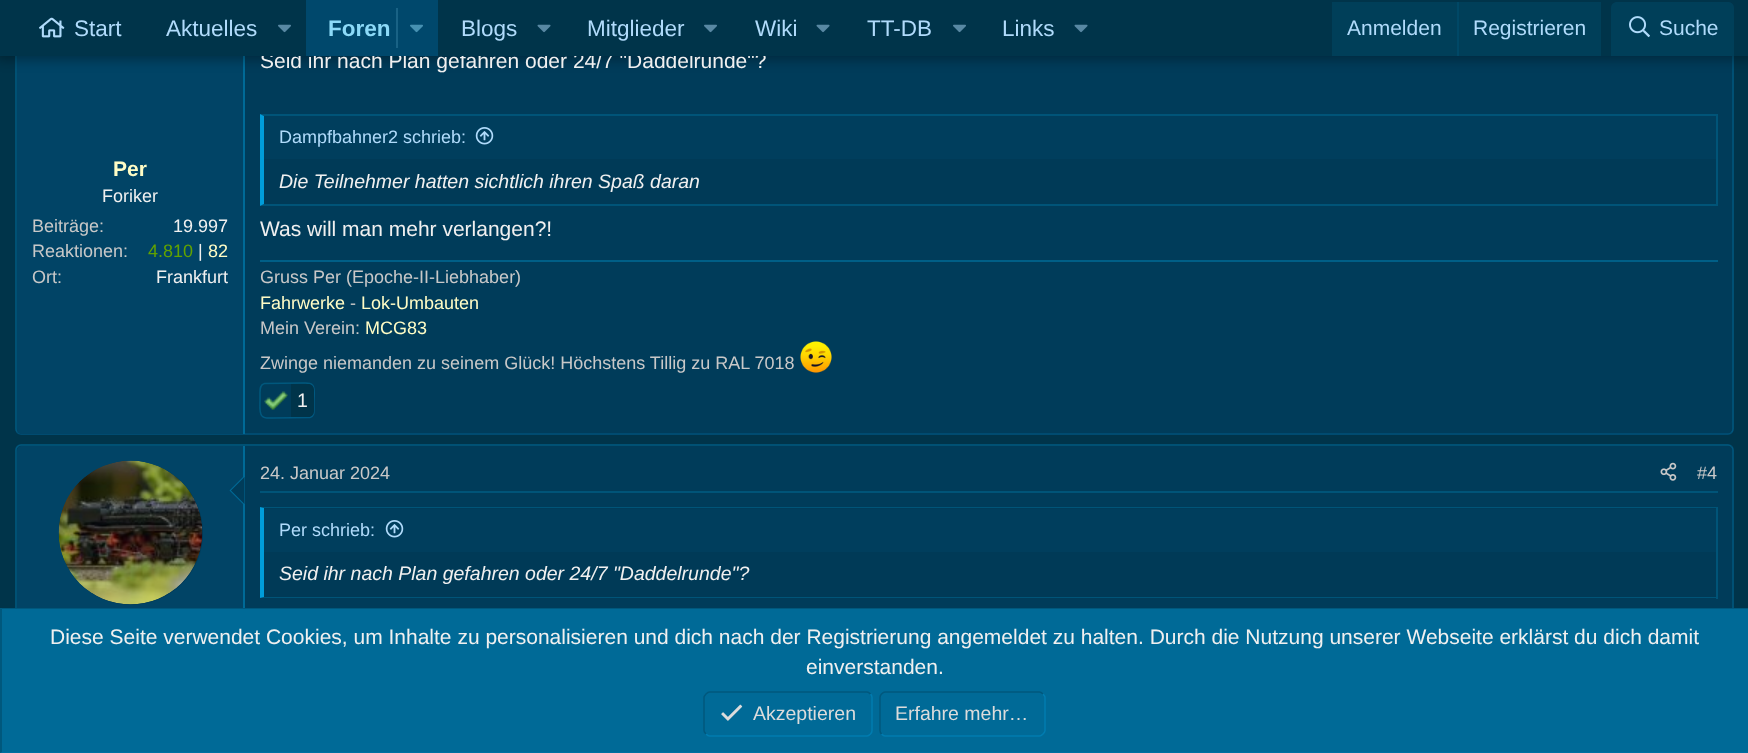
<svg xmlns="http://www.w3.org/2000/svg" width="1748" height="753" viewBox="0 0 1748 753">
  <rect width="100%" height="100%" fill="rgb(0,52,74)"/>
  <rect x="15" y="-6" width="1719" height="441" rx="6" fill="rgb(0,60,90)"/>
  <path d="M1731.5-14C1732.5-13 1733-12 1733-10.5V429C1733 430.5 1732.5 431.5 1731.5 432.5" fill="none" stroke="rgba(0,124,176,0.42)" stroke-width="1.5"/>
  <path d="M1731.5 432.5C1730.5 433.5 1729.5 434 1728 434H21C19.5 434 18.5 433.5 17.5 432.5" fill="none" stroke="rgba(0,124,176,0.34)" stroke-width="1.5"/>
  <path d="M17.5 432.5C16.5 431.5 16 430.5 16 429V-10.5C16-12 16.5-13 17.5-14C18.5-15 19.5-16 21-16H1728C1729.5-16 1730.5-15 1731.5-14" fill="none" stroke="rgb(0,88,125)" stroke-width="1.5"/>
  <path d="M22-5H245V434H22C19 434 17 432 17 429V0C17-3 19-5 22-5Z" fill="rgb(1,68,102)"/>
  <rect x="243" y="56" width="2" height="378" fill="rgb(0,106,151)"/>
  <rect x="-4" y="-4" width="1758" height="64" fill="rgba(0,0,0,0.3)" filter="blur(6px)"/>
  <text x="260" y="68" font-family="Liberation Sans" font-size="21" fill="rgb(240,240,240)">Seid ihr nach Plan gefahren oder 24/7 "Daddelrunde"?</text>
  <rect x="0" y="0" width="1748" height="56" fill="rgb(0,52,74)"/>
  <image x="39" y="17" width="26" height="21" href="pic1.png"/>
  <g font-family="Liberation Sans" font-size="22.5" fill="rgb(176,219,251)">
    <text x="74" y="36">Start</text>
    <text x="166" y="36">Aktuelles</text>
  </g>
  <image x="278" y="24" width="13" height="9" href="pic2.png"/>
  <rect x="306" y="0" width="132" height="56" fill="rgb(0,72,108)"/>
  <text x="328" y="36" font-family="Liberation Sans" font-size="22.5" font-weight="bold" fill="rgb(140,218,248)">Foren</text>
  <rect x="396" y="8" width="2" height="40" fill="rgb(25,98,133)"/>
  <image x="410" y="24" width="13" height="9" href="pic3.png"/>
  <text x="461" y="36" font-family="Liberation Sans" font-size="22.5" fill="rgb(176,219,251)">Blogs</text>
  <image x="537" y="24" width="14" height="9" href="pic4.png"/>
  <text x="587" y="36" font-family="Liberation Sans" font-size="22.5" fill="rgb(176,219,251)">Mitglieder</text>
  <image x="704" y="24" width="13" height="9" href="pic2.png"/>
  <text x="755" y="36" font-family="Liberation Sans" font-size="22.5" fill="rgb(176,219,251)">Wiki</text>
  <image x="816" y="24" width="14" height="9" href="pic4.png"/>
  <text x="867" y="36" font-family="Liberation Sans" font-size="22.5" fill="rgb(176,219,251)">TT-DB</text>
  <image x="953" y="24" width="13" height="9" href="pic2.png"/>
  <text x="1002" y="36" font-family="Liberation Sans" font-size="22.5" fill="rgb(176,219,251)">Links</text>
  <image x="1074" y="24" width="14" height="9" href="pic4.png"/>
  <rect x="1332" y="2" width="269" height="54" fill="rgb(0,63,89)"/>
  <text x="1347" y="35" font-family="Liberation Sans" font-size="21" fill="rgb(176,219,251)">Anmelden</text>
  <rect x="1457" y="2" width="2" height="54" fill="rgb(0,72,102)"/>
  <text x="1473" y="35" font-family="Liberation Sans" font-size="21" fill="rgb(176,219,251)">Registrieren</text>
  <path d="M1617 2H1728C1731.5 2 1734 4.5 1734 8V56H1611V8C1611 4.5 1613.5 2 1617 2Z" fill="rgb(0,63,89)"/>
  <image x="1629" y="16" width="21" height="22" href="pic5.png"/>
  <text x="1659" y="35" font-family="Liberation Sans" font-size="21" fill="rgb(176,219,251)">Suche</text>
  <text x="113" y="176" font-family="Liberation Sans" font-size="21" font-weight="bold" fill="rgb(255,253,198)">Per</text>
  <text x="102" y="202" font-family="Liberation Sans" font-size="18" fill="rgb(240,240,240)">Foriker</text>
  <text x="32" y="232" font-family="Liberation Sans" font-size="18" fill="rgb(200,200,200)">Beiträge:</text>
  <text x="173" y="232" font-family="Liberation Sans" font-size="18" fill="rgb(240,240,240)">19.997</text>
  <text x="32" y="257" font-family="Liberation Sans" font-size="18" fill="rgb(200,200,200)">Reaktionen:</text>
  <text x="148" y="257" font-family="Liberation Sans" font-size="18" fill="rgb(98,162,1)">4.810</text>
  <text x="198" y="257" font-family="Liberation Sans" font-size="18" fill="rgb(240,240,240)">|</text>
  <text x="208" y="257" font-family="Liberation Sans" font-size="18" fill="rgb(255,253,198)">82</text>
  <text x="32" y="283" font-family="Liberation Sans" font-size="18" fill="rgb(200,200,200)">Ort:</text>
  <text x="156" y="283" font-family="Liberation Sans" font-size="18" fill="rgb(240,240,240)">Frankfurt</text>
  <rect x="264" y="159" width="1452" height="45" fill="rgb(0,58,87)"/>
  <path d="M260 114H1718L1716 116H264Z" fill="rgb(0,84,120)"/>
  <rect x="1716" y="114" width="2" height="92" fill="rgb(0,84,120)"/>
  <path d="M1718 206H260L264 204H1716Z" fill="rgb(0,84,120)"/>
  <path d="M260 206V114L264 116V204Z" fill="rgb(0,157,218)"/>
  <rect x="264" y="116" width="1452" height="43" fill="rgb(0,62,93)"/>
  <text x="279" y="143" font-family="Liberation Sans" font-size="18" fill="rgb(176,219,251)">Dampfbahner2 schrieb:</text>
  <image x="475" y="127" width="19" height="18" href="pic6.png"/>
  <text x="279" y="188" font-family="Liberation Sans" font-size="19.5" font-style="italic" fill="rgb(240,240,240)">Die Teilnehmer hatten sichtlich ihren Spaß daran</text>
  <text x="260" y="236" font-family="Liberation Sans" font-size="21" fill="rgb(240,240,240)">Was will man mehr verlangen?!</text>
  <rect x="260" y="260" width="1458" height="2" fill="rgb(0,95,135)"/>
  <text x="260" y="283" font-family="Liberation Sans" font-size="18" fill="rgb(200,200,200)">Gruss Per (Epoche-II-Liebhaber)</text>
  <text x="260" y="309" font-family="Liberation Sans" font-size="18" fill="rgb(255,253,198)">Fahrwerke</text>
  <text x="350" y="309" font-family="Liberation Sans" font-size="18" fill="rgb(200,200,200)">-</text>
  <text x="361" y="309" font-family="Liberation Sans" font-size="18" fill="rgb(255,253,198)">Lok-Umbauten</text>
  <text x="260" y="334" font-family="Liberation Sans" font-size="18" fill="rgb(200,200,200)">Mein Verein:</text>
  <text x="365" y="334" font-family="Liberation Sans" font-size="18" fill="rgb(255,253,198)">MCG83</text>
  <text x="260" y="369" font-family="Liberation Sans" font-size="18" fill="rgb(200,200,200)">Zwinge niemanden zu seinem Glück! Höchstens Tillig zu RAL 7018</text>
  <image x="800" y="341" width="32" height="32" href="pic7.png"/>
  <path d="M312.5 385C315.5 388 314 397 314 400.5V408.5C314 412 314.5 416.5 310 417.5L273 418C270 418 264.5 419 262 416" fill="none" stroke="rgb(0,89,129)" stroke-width="1.5"/>
  <path d="M262 416C259 413 260 404 260 400.5V392.5C260 389 260 384.5 264.5 383.5L302 383C304.5 383 310 382 312.5 385" fill="none" stroke="rgb(0,88,125)" stroke-width="1.5"/>
  <image x="264" y="391" width="24" height="19" href="pic8.png"/>
  <path d="M291 384H308C311.5 384 314 386.5 314 390V411C314 414.5 311.5 417 308 417H291Z" fill="rgb(0,52,74)"/>
  <text x="297" y="407" font-family="Liberation Sans" font-size="19.5" fill="rgb(240,240,240)">1</text>
  <rect x="15" y="444" width="1719" height="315" rx="6" fill="rgb(0,60,90)"/>
  <path d="M1731.5 446.5C1732.5 447.5 1733 448.5 1733 450V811.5C1733 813 1732.5 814 1731.5 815" fill="none" stroke="rgba(0,124,176,0.42)" stroke-width="1.5"/>
  <path d="M17.5 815C16.5 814 16 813 16 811.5V450C16 448.5 16.5 447.5 17.5 446.5C18.5 445.5 19.5 445 21 445H1728C1729.5 445 1730.5 445.5 1731.5 446.5" fill="none" stroke="rgb(0,88,125)" stroke-width="1.5"/>
  <path d="M22 446H245V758H22C19 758 17 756 17 753V451C17 448 19 446 22 446Z" fill="rgb(1,68,102)"/>
  <rect x="243" y="446" width="2" height="162" fill="rgb(0,106,151)"/>
  <circle cx="131" cy="533" r="72" fill="rgb(1,59,90)"/>
  <image x="58" y="460" width="145" height="145" href="pic9.png"/>
  <path d="M244.5 475.5V505.5L229.5 490.5Z" fill="rgb(0,106,151)"/>
  <path d="M244.5 477V504L231 490.5Z" fill="rgb(0,60,90)"/>
  <rect x="260" y="491" width="1458" height="2" fill="rgb(0,84,120)"/>
  <text x="260" y="479" font-family="Liberation Sans" font-size="18" fill="rgb(200,200,200)">24. Januar 2024</text>
  <image x="1660" y="462" width="17" height="19" href="pic10.png"/>
  <text x="1697" y="479" font-family="Liberation Sans" font-size="18" fill="rgb(200,200,200)">#4</text>
  <rect x="264" y="552" width="1452" height="45" fill="rgb(0,58,87)"/>
  <path d="M260 507H1718L1716 508H264Z" fill="rgb(0,84,120)"/>
  <rect x="1716" y="507" width="2" height="92" fill="rgb(0,84,120)"/>
  <path d="M1718 598H260L264 597H1716Z" fill="rgb(0,84,120)"/>
  <path d="M260 598V507L264 508V597Z" fill="rgb(0,157,218)"/>
  <rect x="264" y="509" width="1452" height="43" fill="rgb(0,62,93)"/>
  <text x="279" y="536" font-family="Liberation Sans" font-size="18" fill="rgb(176,219,251)">Per schrieb:</text>
  <image x="385" y="520" width="19" height="18" href="pic6.png"/>
  <text x="279" y="580" font-family="Liberation Sans" font-size="19.5" font-style="italic" fill="rgb(240,240,240)">Seid ihr nach Plan gefahren oder 24/7 "Daddelrunde"?</text>
  <rect x="0" y="608" width="1748" height="145" fill="rgb(0,106,151)"/>
  <path d="M0 608H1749L1748 609H2Z" fill="rgb(0,88,125)"/>
  <path d="M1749 753H0L2 752H1748Z" fill="rgb(0,112,160)"/>
  <path d="M0 753V608L2 609V752Z" fill="rgb(0,88,125)"/>
  <g font-family="Liberation Sans" font-size="21" fill="rgb(240,240,240)">
    <text x="50" y="644">Diese Seite verwendet Cookies, um Inhalte zu personalisieren und dich nach der Registrierung angemeldet zu halten. Durch die Nutzung unserer Webseite erklärst du dich damit</text>
    <text x="806" y="674">einverstanden.</text>
  </g>
  <path d="M870.5 694C871.5 695 872 696 872 697.5V730.5C872 732 871.5 733 870.5 734C869.5 735 868.5 736 867 736H709.5C708 736 707 735 706 734" fill="none" stroke="rgb(0,124,176)" stroke-width="1.5"/>
  <path d="M706 734C705 733 704 732 704 730.5V697.5C704 696 705 695 706 694C707 693 708 692 709.5 692H867C868.5 692 869.5 693 870.5 694" fill="none" stroke="rgb(0,88,125)" stroke-width="1.5"/>
  <image x="721" y="704" width="22" height="17" href="pic11.png"/>
  <text x="753" y="720" font-family="Liberation Sans" font-size="19.5" fill="rgb(220,220,220)">Akzeptieren</text>
  <path d="M1043 694C1044 695 1045 696 1045 697.5V730.5C1045 732 1044 733 1043 734C1042 735 1041 736 1039.5 736H885C883.5 736 882.5 735 881.5 734" fill="none" stroke="rgb(0,124,176)" stroke-width="1.5"/>
  <path d="M881.5 734C880.5 733 880 732 880 730.5V697.5C880 696 880.5 695 881.5 694C882.5 693 883.5 692 885 692H1039.5C1041 692 1042 693 1043 694" fill="none" stroke="rgb(0,88,125)" stroke-width="1.5"/>
  <text x="895" y="720" font-family="Liberation Sans" font-size="19.5" fill="rgb(220,220,220)">Erfahre mehr…</text>
</svg>
